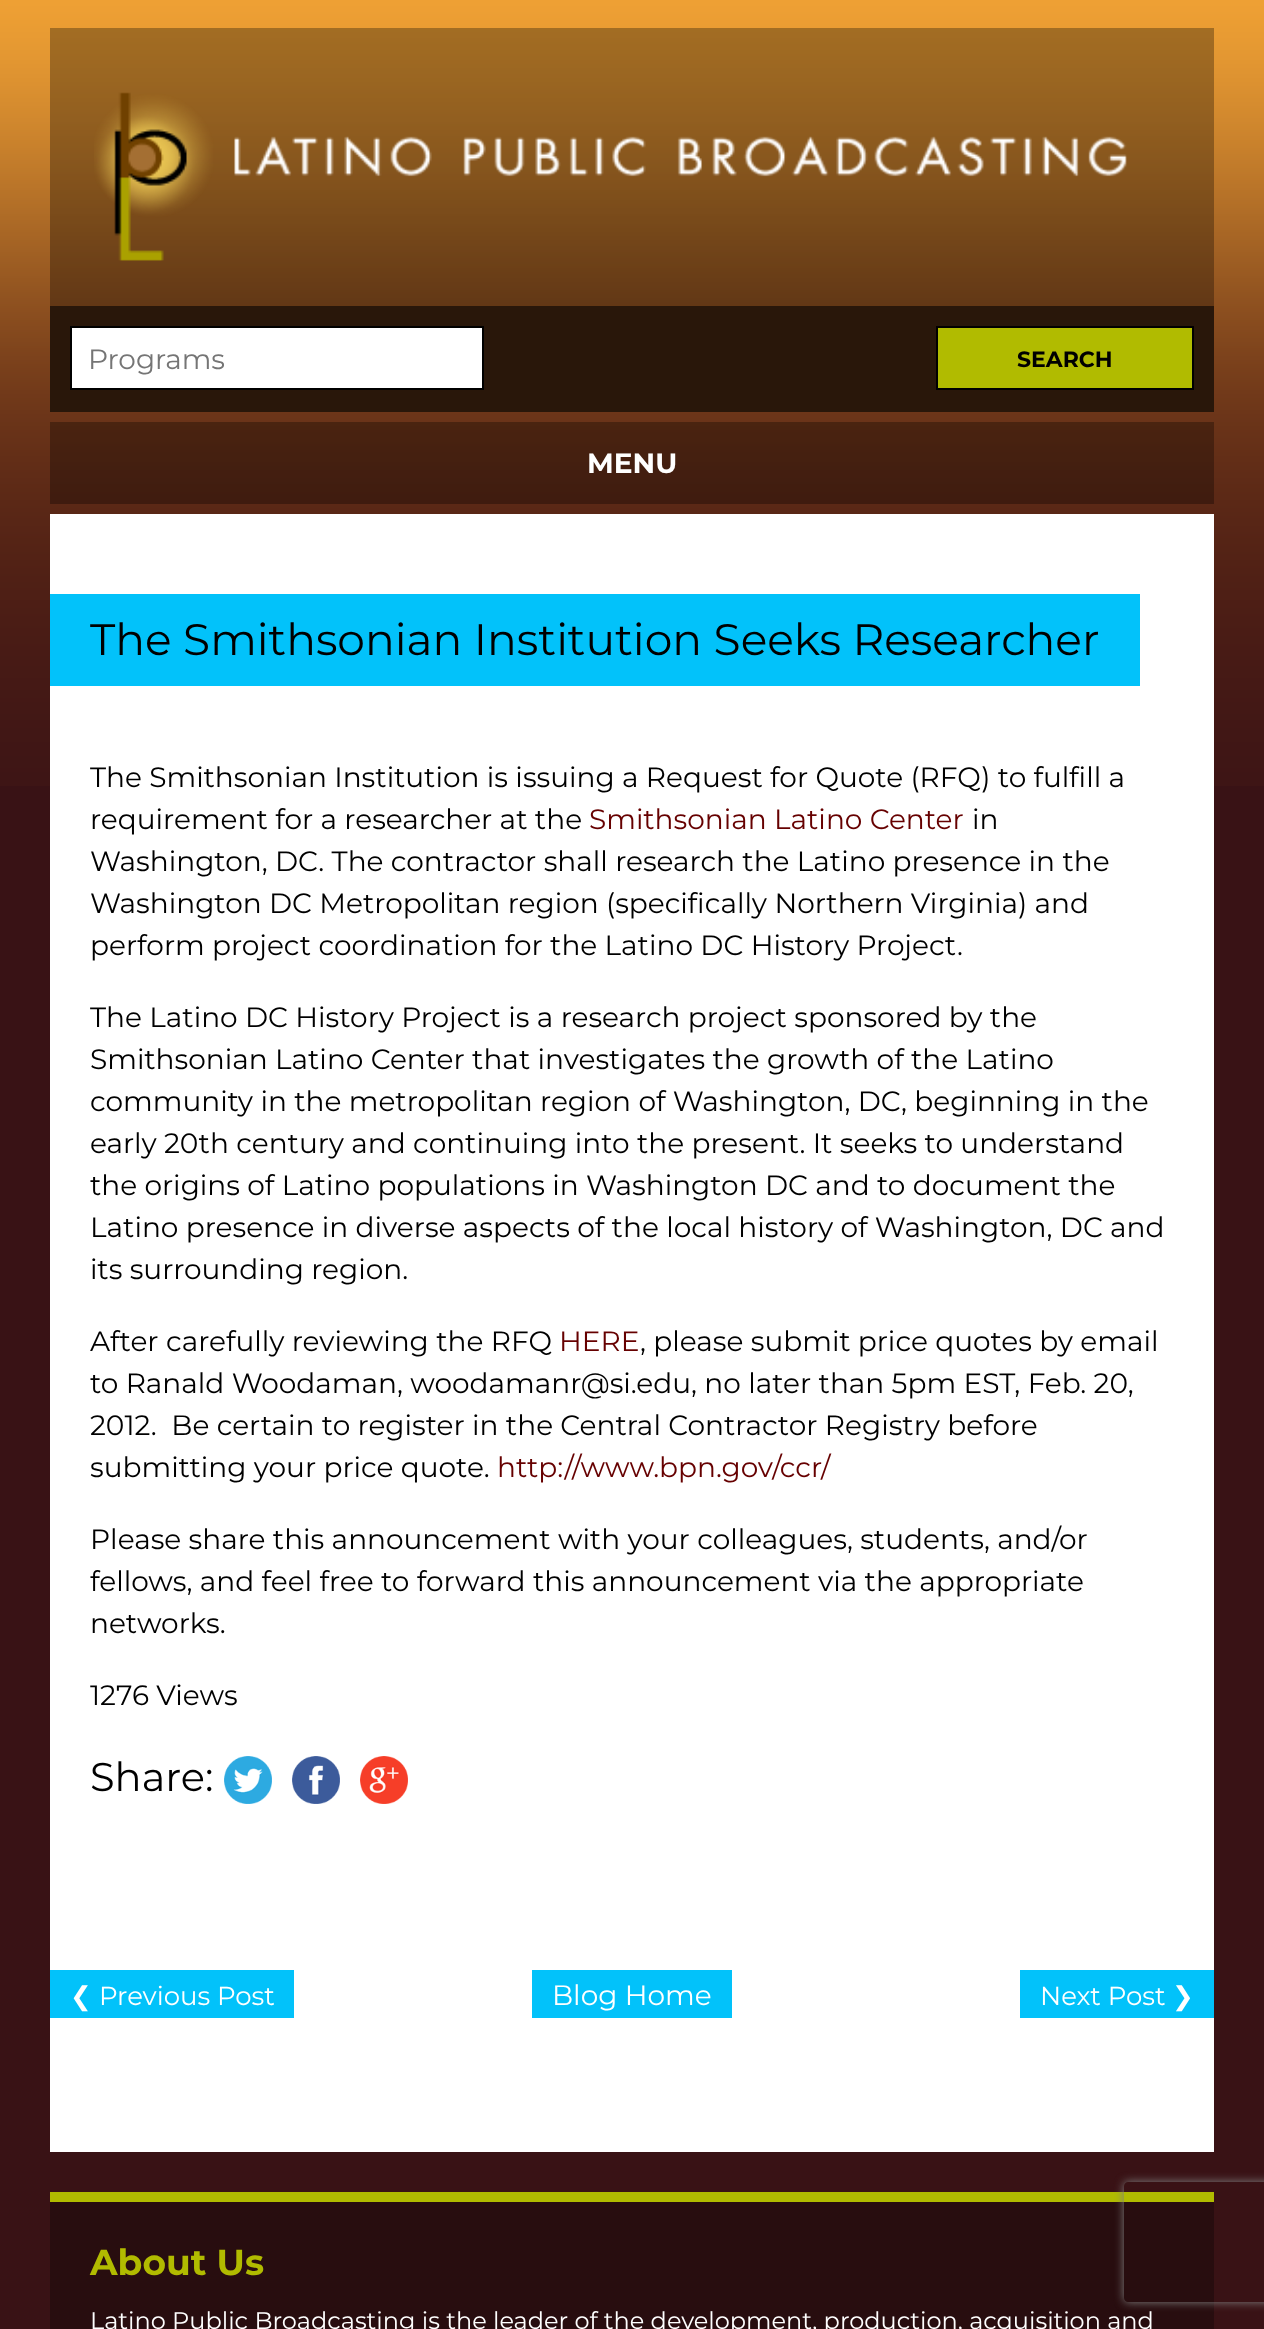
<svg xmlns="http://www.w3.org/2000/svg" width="1264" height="2329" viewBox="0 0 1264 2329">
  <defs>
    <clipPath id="clip1"><path d="M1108 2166H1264V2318H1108ZM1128 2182H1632C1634 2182 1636 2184 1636 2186V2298C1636 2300 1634 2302 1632 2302H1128C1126 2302 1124 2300 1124 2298V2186C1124 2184 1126 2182 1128 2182Z" clip-rule="evenodd"/></clipPath>
  </defs>
  <rect width="100%" height="100%" fill="rgb(57,18,21)"/>
  <image x="0" y="0" width="1264" height="786" href="pic1.png"/>
  <rect x="50" y="28" width="1164" height="278" fill="rgba(0,0,0,0.3)"/>
  <image x="94" y="92" width="1033" height="169" href="pic2.png"/>
  <rect x="50" y="306" width="1164" height="106" fill="rgb(41,23,10)"/>
  <rect x="71" y="327" width="412" height="62" fill="rgb(255,255,255)" stroke="rgb(0,0,0)" stroke-width="2"/>
  <text x="88" y="369" font-family="Montserrat" font-size="28" fill="rgb(117,117,117)">Programs</text>
  <rect x="937" y="327" width="256" height="62" fill="rgb(177,187,0)" stroke="rgb(0,0,0)" stroke-width="2"/>
  <text x="1017" y="367" font-family="Montserrat" font-size="22" font-weight="bold" fill="rgb(0,0,0)">SEARCH</text>
  <rect x="50" y="422" width="1164" height="82" fill="rgba(0,0,0,0.3)"/>
  <text x="587" y="473" font-family="Montserrat" font-size="28" font-weight="bold" fill="rgb(255,255,255)">MENU</text>
  <rect x="50" y="514" width="1164" height="1638" fill="rgb(255,255,255)"/>
  <rect x="50" y="594" width="1090" height="92" fill="rgb(2,194,250)"/>
  <text x="90" y="655" font-family="Montserrat" font-size="44" fill="rgb(0,0,0)">The Smithsonian Institution Seeks Researcher</text>
  <g font-family="Montserrat" font-size="28" fill="rgb(0,0,0)">
    <text>
      <tspan x="90" y="787">The Smithsonian Institution is issuing a Request for Quote (RFQ) to fulfill a</tspan>
      <tspan x="90" y="829">requirement for a researcher at the</tspan>
    </text>
  </g>
  <text x="589" y="829" font-family="Montserrat" font-size="28" fill="rgb(102,0,0)">Smithsonian Latino Center</text>
  <g font-family="Montserrat" font-size="28" fill="rgb(0,0,0)">
    <text x="972" y="829">in</text>
    <text>
      <tspan x="90" y="871">Washington, DC. The contractor shall research the Latino presence in the</tspan>
      <tspan x="90" y="913">Washington DC Metropolitan region (specifically Northern Virginia) and</tspan>
      <tspan x="90" y="955">perform project coordination for the Latino DC History Project</tspan>
    </text>
    <text x="957" y="955">.</text>
    <text>
      <tspan x="90" y="1027">The Latino DC History Project is a research project sponsored by the</tspan>
      <tspan x="90" y="1069">Smithsonian Latino Center that investigates the growth of the Latino</tspan>
      <tspan x="90" y="1111">community in the metropolitan region of Washington, DC, beginning in the</tspan>
      <tspan x="90" y="1153">early 20th century and continuing into the present. It seeks to understand</tspan>
      <tspan x="90" y="1195">the origins of Latino populations in Washington DC and to document the</tspan>
      <tspan x="90" y="1237">Latino presence in diverse aspects of the local history of Washington, DC and</tspan>
      <tspan x="90" y="1279">its surrounding region.</tspan>
    </text>
    <text x="90" y="1351">After carefully reviewing the RFQ</text>
  </g>
  <text x="559" y="1351" font-family="Montserrat" font-size="28" fill="rgb(102,0,0)">HERE</text>
  <g font-family="Montserrat" font-size="28" fill="rgb(0,0,0)">
    <text x="640" y="1351">, please submit price quotes by email</text>
    <text xml:space="preserve"><tspan x="90" y="1393">to Ranald Woodaman, woodamanr@si.edu, no later than 5pm EST, Feb. 20,</tspan><tspan x="90" y="1435">2012.  Be certain to register in the Central Contractor Registry before</tspan><tspan x="90" y="1477">submitting your price quote.</tspan></text>
  </g>
  <text x="497" y="1477" font-family="Montserrat" font-size="28" fill="rgb(102,0,0)">http://www.bpn.gov/ccr/</text>
  <g font-family="Montserrat" font-size="28" fill="rgb(0,0,0)">
    <text>
      <tspan x="90" y="1549">Please share this announcement with your colleagues, students, and/or</tspan>
      <tspan x="90" y="1591">fellows, and feel free to forward this announcement via the appropriate</tspan>
      <tspan x="90" y="1633">networks.</tspan>
    </text>
    <text x="90" y="1705">1276 Views</text>
  </g>
  <text x="90" y="1791" font-family="Montserrat" font-size="40" fill="rgb(0,0,0)">Share:</text>
  <image x="224" y="1756" width="48" height="48" href="pic3.png"/>
  <image x="292" y="1756" width="48" height="48" href="pic4.png"/>
  <image x="360" y="1756" width="48" height="48" href="pic5.png"/>
  <rect x="532" y="1970" width="200" height="48" fill="rgb(2,194,250)"/>
  <text x="552" y="2005" font-family="Montserrat" font-size="28" fill="rgb(255,255,255)">Blog Home</text>
  <rect x="50" y="1970" width="244" height="48" fill="rgb(2,194,250)"/>
  <text x="70" y="2005" font-family="DejaVu Sans" font-size="26" fill="rgb(255,255,255)">❮</text>
  <text x="99" y="2005" font-family="Montserrat" font-size="26" fill="rgb(255,255,255)">Previous Post</text>
  <rect x="1020" y="1970" width="194" height="48" fill="rgb(2,194,250)"/>
  <text x="1040" y="2005" font-family="Montserrat" font-size="26" fill="rgb(255,255,255)">Next Post</text>
  <text x="1172" y="2005" font-family="DejaVu Sans" font-size="26" fill="rgb(255,255,255)">❯</text>
  <rect x="50" y="2202" width="1164" height="127" fill="rgb(40,13,15)"/>
  <rect x="50" y="2192" width="1164" height="10" fill="rgb(177,187,0)"/>
  <text x="90" y="2275" font-family="Montserrat" font-size="36" font-weight="bold" fill="rgb(177,187,0)">About Us</text>
  <text x="90" y="2329" font-family="Montserrat" font-size="24" fill="rgb(255,255,255)">Latino Public Broadcasting is the leader of the development, production, acquisition and</text>
  <g clip-path="url(#clip1)">
    <rect x="1124" y="2182" width="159" height="120" rx="4" fill="rgb(128,128,128)" filter="blur(5px)"/>
  </g>
</svg>
